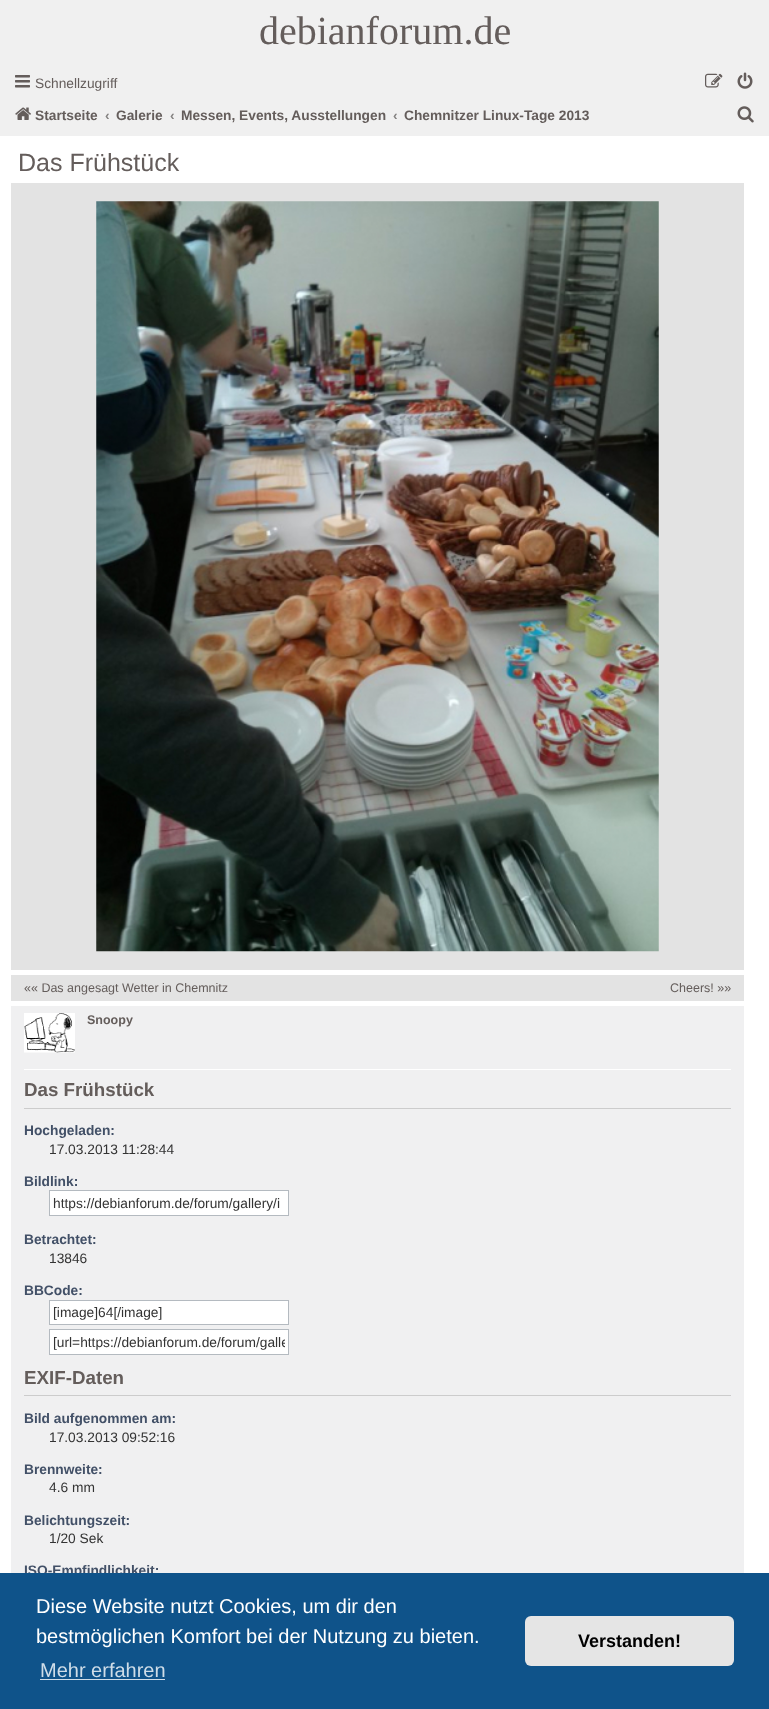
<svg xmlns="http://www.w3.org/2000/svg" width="769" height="1709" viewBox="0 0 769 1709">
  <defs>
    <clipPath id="clip1"><rect x="53" y="1333" width="232" height="18"/></clipPath>
  </defs>
  <rect width="100%" height="100%" fill="rgb(255,255,255)"/>
  <rect x="0" y="0" width="769" height="136" fill="rgb(240,240,240)"/>
  <text x="259" y="44" font-family="Liberation Serif" font-size="40" fill="rgb(100,93,91)">debianforum.de</text>
  <image x="15" y="75" width="15" height="13" href="pic1.png"/>
  <text x="35" y="88" font-family="Liberation Sans" font-size="13.75" fill="rgb(100,93,91)">Schnellzugriff</text>
  <image x="705" y="73" width="18" height="15" href="pic2.png"/>
  <image x="737" y="72" width="16" height="17" href="pic3.png"/>
  <image x="15" y="107" width="16" height="13" href="pic4.png"/>
  <text x="35" y="120" font-family="Liberation Sans" font-size="13.75" font-weight="bold" fill="rgb(100,93,91)">Startseite</text>
  <text x="105" y="120" font-family="Liberation Sans" font-size="13.75" font-weight="bold" fill="rgb(132,130,129)">‹</text>
  <text x="116" y="120" font-family="Liberation Sans" font-size="13.75" font-weight="bold" fill="rgb(100,93,91)">Galerie</text>
  <text x="170" y="120" font-family="Liberation Sans" font-size="13.75" font-weight="bold" fill="rgb(132,130,129)">‹</text>
  <text x="181" y="120" font-family="Liberation Sans" font-size="13.75" font-weight="bold" fill="rgb(100,93,91)">Messen, Events, Ausstellungen</text>
  <text x="393" y="120" font-family="Liberation Sans" font-size="13.75" font-weight="bold" fill="rgb(132,130,129)">‹</text>
  <text x="404" y="120" font-family="Liberation Sans" font-size="13.75" font-weight="bold" fill="rgb(100,93,91)">Chemnitzer Linux-Tage 2013</text>
  <image x="737" y="106" width="17" height="17" href="pic5.png"/>
  <text x="18" y="171" font-family="Liberation Sans" font-size="25" fill="rgb(100,93,91)">Das Frühstück</text>
  <rect x="11" y="183" width="733" height="787" fill="rgb(227,227,227)"/>
  <image x="96" y="201" width="563" height="751" href="pic6.png"/>
  <rect x="11" y="975" width="733" height="26" fill="rgb(227,227,227)"/>
  <g font-family="Liberation Sans" font-size="12.5" fill="rgb(100,93,91)">
    <text x="24" y="992">«« Das angesagt Wetter in Chemnitz</text>
    <text x="670" y="992">Cheers! »»</text>
  </g>
  <rect x="11" y="1006" width="733" height="567" fill="rgb(240,240,241)"/>
  <rect x="24" y="1069" width="707" height="1" fill="rgb(255,255,255)"/>
  <image x="24" y="1013" width="51" height="40" href="pic7.png"/>
  <text x="87" y="1024" font-family="Liberation Sans" font-size="12.5" font-weight="bold" fill="rgb(100,93,91)">Snoopy</text>
  <text x="24" y="1096" font-family="Liberation Sans" font-size="18.75" font-weight="bold" fill="rgb(100,93,91)">Das Frühstück</text>
  <rect x="24" y="1108" width="707" height="1" fill="rgb(204,204,204)"/>
  <text x="24" y="1135" font-family="Liberation Sans" font-size="13.75" font-weight="bold" fill="rgb(66,80,103)">Hochgeladen:</text>
  <text x="49" y="1154" font-family="Liberation Sans" font-size="13.75" fill="rgb(51,51,51)">17.03.2013 11:28:44</text>
  <text x="24" y="1186" font-family="Liberation Sans" font-size="13.75" font-weight="bold" fill="rgb(66,80,103)">Bildlink:</text>
  <rect x="49.5" y="1190.5" width="239" height="25" fill="rgb(255,255,255)" stroke="rgb(180,186,192)"/>
  <text x="53" y="1208" font-family="Liberation Sans" font-size="13.75" fill="rgb(51,51,51)">https://debianforum.de/forum/gallery/i</text>
  <text x="24" y="1244" font-family="Liberation Sans" font-size="13.75" font-weight="bold" fill="rgb(66,80,103)">Betrachtet:</text>
  <text x="49" y="1263" font-family="Liberation Sans" font-size="13.75" fill="rgb(51,51,51)">13846</text>
  <text x="24" y="1295" font-family="Liberation Sans" font-size="13.75" font-weight="bold" fill="rgb(66,80,103)">BBCode:</text>
  <rect x="49.5" y="1300.5" width="239" height="24" fill="rgb(255,255,255)" stroke="rgb(180,186,192)"/>
  <text x="53" y="1317" font-family="Liberation Sans" font-size="13.75" fill="rgb(51,51,51)">[image]64[/image]</text>
  <rect x="49.5" y="1329.5" width="239" height="25" fill="rgb(255,255,255)" stroke="rgb(180,186,192)"/>
  <g clip-path="url(#clip1)">
    <text x="53" y="1347" font-family="Liberation Sans" font-size="13.75" fill="rgb(51,51,51)">[url=https://debianforum.de/forum/galle</text>
  </g>
  <text x="24" y="1384" font-family="Liberation Sans" font-size="18.75" font-weight="bold" fill="rgb(100,93,91)">EXIF-Daten</text>
  <rect x="24" y="1395" width="707" height="1" fill="rgb(204,204,204)"/>
  <text x="24" y="1423" font-family="Liberation Sans" font-size="13.75" font-weight="bold" fill="rgb(66,80,103)">Bild aufgenommen am:</text>
  <text x="49" y="1442" font-family="Liberation Sans" font-size="13.75" fill="rgb(51,51,51)">17.03.2013 09:52:16</text>
  <text x="24" y="1474" font-family="Liberation Sans" font-size="13.75" font-weight="bold" fill="rgb(66,80,103)">Brennweite:</text>
  <text x="49" y="1492" font-family="Liberation Sans" font-size="13.75" fill="rgb(51,51,51)">4.6 mm</text>
  <text x="24" y="1525" font-family="Liberation Sans" font-size="13.75" font-weight="bold" fill="rgb(66,80,103)">Belichtungszeit:</text>
  <text x="49" y="1543" font-family="Liberation Sans" font-size="13.75" fill="rgb(51,51,51)">1/20 Sek</text>
  <text x="24" y="1575" font-family="Liberation Sans" font-size="13.75" font-weight="bold" fill="rgb(66,80,103)">ISO-Empfindlichkeit:</text>
  <rect x="0" y="1573" width="769" height="136" fill="rgb(15,83,138)"/>
  <g font-family="Liberation Sans" font-size="20" fill="rgb(255,255,255)">
    <text>
      <tspan x="36" y="1613">Diese Website nutzt Cookies, um dir den</tspan>
      <tspan x="36" y="1643">bestmöglichen Komfort bei der Nutzung zu bieten.</tspan>
    </text>
  </g>
  <text x="40" y="1677" font-family="Liberation Sans" font-size="20" fill="rgb(207,221,232)">Mehr erfahren</text>
  <rect x="40" y="1679" width="125" height="1" fill="rgb(207,221,232)"/>
  <rect x="525" y="1616" width="209" height="50" rx="6" fill="rgb(229,229,229)"/>
  <text x="578" y="1647" font-family="Liberation Sans" font-size="18" font-weight="bold" fill="rgb(0,0,0)">Verstanden!</text>
</svg>
